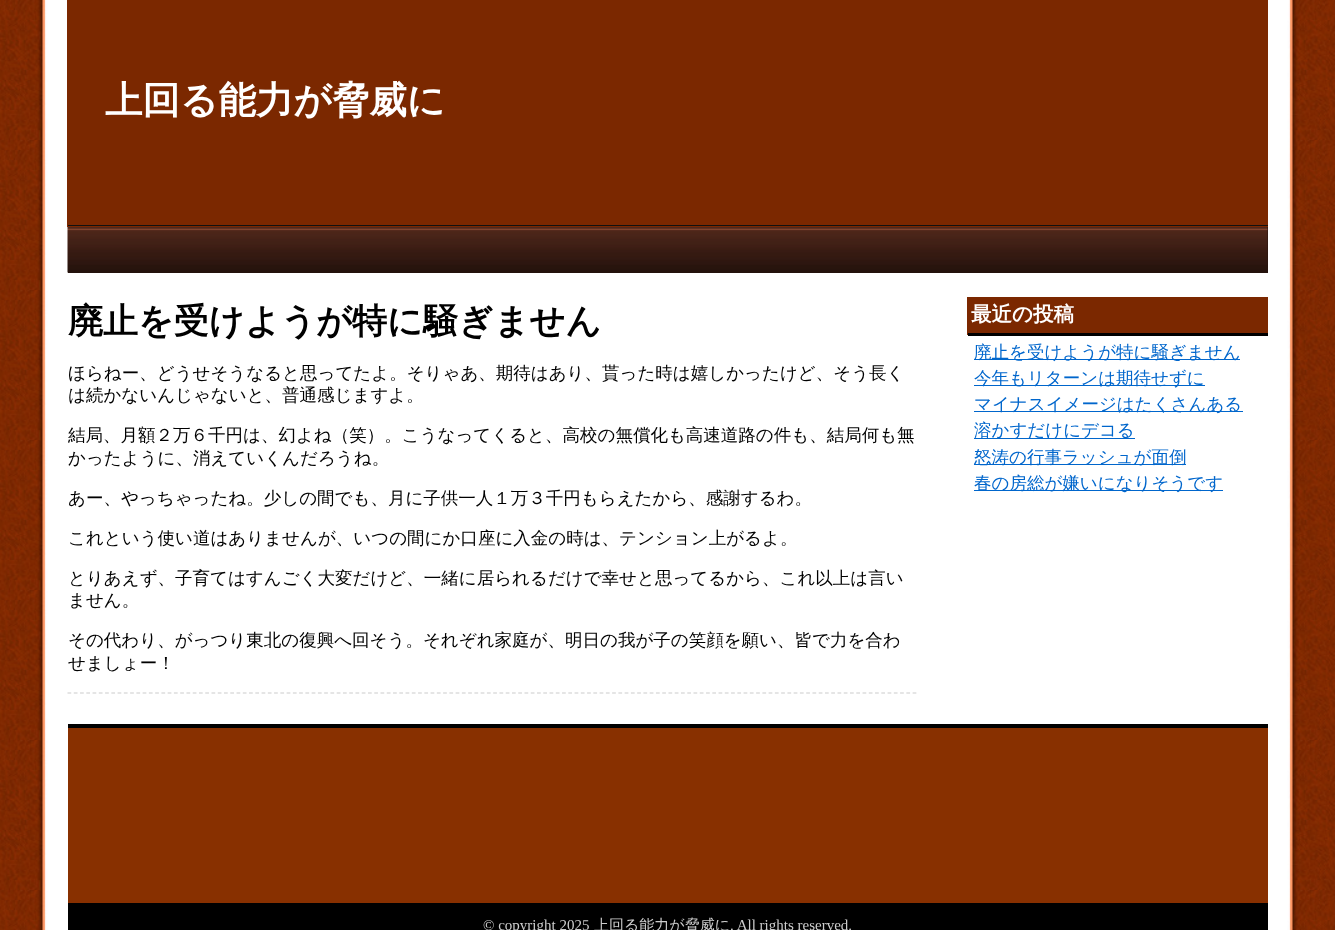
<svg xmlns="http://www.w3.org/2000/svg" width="1335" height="930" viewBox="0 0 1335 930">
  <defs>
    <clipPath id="clip1"><rect x="68" y="273" width="1200" height="446"/></clipPath>
  </defs>
  <rect width="100%" height="100%" fill="rgb(255,255,255)"/>
  <image x="0" y="0" width="1335" height="930" href="pic1.png"/>
  <rect x="67" y="0" width="1201" height="227" fill="rgb(123,40,0)"/>
  <rect x="68" y="225" width="1200" height="1" fill="rgb(17,17,17)"/>
  <text x="105" y="113" font-family="WenQuanYi Zen Hei" font-size="37.5" font-weight="bold" fill="rgb(255,255,255)">上回る能力が脅威に</text>
  <rect x="68" y="227" width="1200" height="46" fill="rgb(37,18,12)"/>
  <image x="67" y="227" width="1201" height="46" href="pic2.png"/>
  <path d="M67.5 693H917.5" fill="none" stroke="rgb(204,204,204)" stroke-width="1.2" stroke-dasharray="3.75 2.51"/>
  <text x="68" y="333" font-family="WenQuanYi Zen Hei" font-size="35" font-weight="bold" fill="rgb(0,0,0)">廃止を受けようが特に騒ぎません</text>
  <g font-family="WenQuanYi Zen Hei" font-size="17.5" font-weight="500" fill="rgb(0,0,0)">
    <text>
      <tspan x="68" y="379">ほらねー、どうせそうなると思ってたよ。そりゃあ、期待はあり、貰った時は嬉しかったけど、そう長く</tspan>
      <tspan x="68" y="401">は続かないんじゃないと、普通感じますよ。</tspan>
    </text>
  </g>
  <g clip-path="url(#clip1)">
    <text x="68" y="441" font-family="WenQuanYi Zen Hei" font-size="17.5" font-weight="500" fill="rgb(0,0,0)">結局、月額２万６千円は、幻よね（笑）。こうなってくると、高校の無償化も高速道路の件も、結局何も無</text>
  </g>
  <g font-family="WenQuanYi Zen Hei" font-size="17.5" font-weight="500" fill="rgb(0,0,0)">
    <text x="68" y="464">かったように、消えていくんだろうね。</text>
    <text x="68" y="504">あー、やっちゃったね。少しの間でも、月に子供一人１万３千円もらえたから、感謝するわ。</text>
    <text x="68" y="544">これという使い道はありませんが、いつの間にか口座に入金の時は、テンション上がるよ。</text>
    <text>
      <tspan x="68" y="584">とりあえず、子育てはすんごく大変だけど、一緒に居られるだけで幸せと思ってるから、これ以上は言い</tspan>
      <tspan x="68" y="606">ません。</tspan>
    </text>
    <text>
      <tspan x="68" y="646">その代わり、がっつり東北の復興へ回そう。それぞれ家庭が、明日の我が子の笑顔を願い、皆で力を合わ</tspan>
      <tspan x="68" y="669">せましょー！</tspan>
    </text>
  </g>
  <rect x="967" y="297" width="301" height="38" fill="rgb(123,40,0)"/>
  <rect x="968" y="333" width="300" height="3" fill="rgb(0,0,0)"/>
  <text x="971" y="321" font-family="WenQuanYi Zen Hei" font-size="20.5" font-weight="bold" fill="rgb(255,255,255)">最近の投稿</text>
  <rect x="974" y="359" width="266" height="1" fill="rgb(0,102,204)"/>
  <text x="974" y="358" font-family="WenQuanYi Zen Hei" font-size="17.5" font-weight="500" fill="rgb(0,102,204)">廃止を受けようが特に騒ぎません</text>
  <rect x="974" y="385" width="231" height="1" fill="rgb(0,102,204)"/>
  <text x="974" y="384" font-family="WenQuanYi Zen Hei" font-size="17.5" font-weight="500" fill="rgb(0,102,204)">今年もリターンは期待せずに</text>
  <rect x="974" y="411" width="269" height="1" fill="rgb(0,102,204)"/>
  <text x="974" y="410" font-family="WenQuanYi Zen Hei" font-size="17.5" font-weight="500" fill="rgb(0,102,204)">マイナスイメージはたくさんある</text>
  <rect x="974" y="438" width="161" height="1" fill="rgb(0,102,204)"/>
  <text x="974" y="436" font-family="WenQuanYi Zen Hei" font-size="17.5" font-weight="500" fill="rgb(0,102,204)">溶かすだけにデコる</text>
  <rect x="974" y="464" width="212" height="1" fill="rgb(0,102,204)"/>
  <text x="974" y="463" font-family="WenQuanYi Zen Hei" font-size="17.5" font-weight="500" fill="rgb(0,102,204)">怒涛の行事ラッシュが面倒</text>
  <rect x="974" y="490" width="249" height="1" fill="rgb(0,102,204)"/>
  <text x="974" y="489" font-family="WenQuanYi Zen Hei" font-size="17.5" font-weight="500" fill="rgb(0,102,204)">春の房総が嫌いになりそうです</text>
  <rect x="68" y="724" width="1200" height="4" fill="rgb(0,0,0)"/>
  <rect x="68" y="728" width="1200" height="175" fill="rgb(136,48,0)"/>
  <rect x="68" y="903" width="1200" height="27" fill="rgb(0,0,0)"/>
  <text x="483" y="930" font-family="Liberation Serif" font-size="15" fill="rgb(204,204,204)">© copyright 2025</text>
  <text x="594" y="930" font-family="WenQuanYi Zen Hei" font-size="15" font-weight="500" fill="rgb(204,204,204)">上回る能力が脅威に</text>
  <text x="730" y="930" font-family="Liberation Serif" font-size="15" fill="rgb(204,204,204)">. All rights reserved.</text>
</svg>
